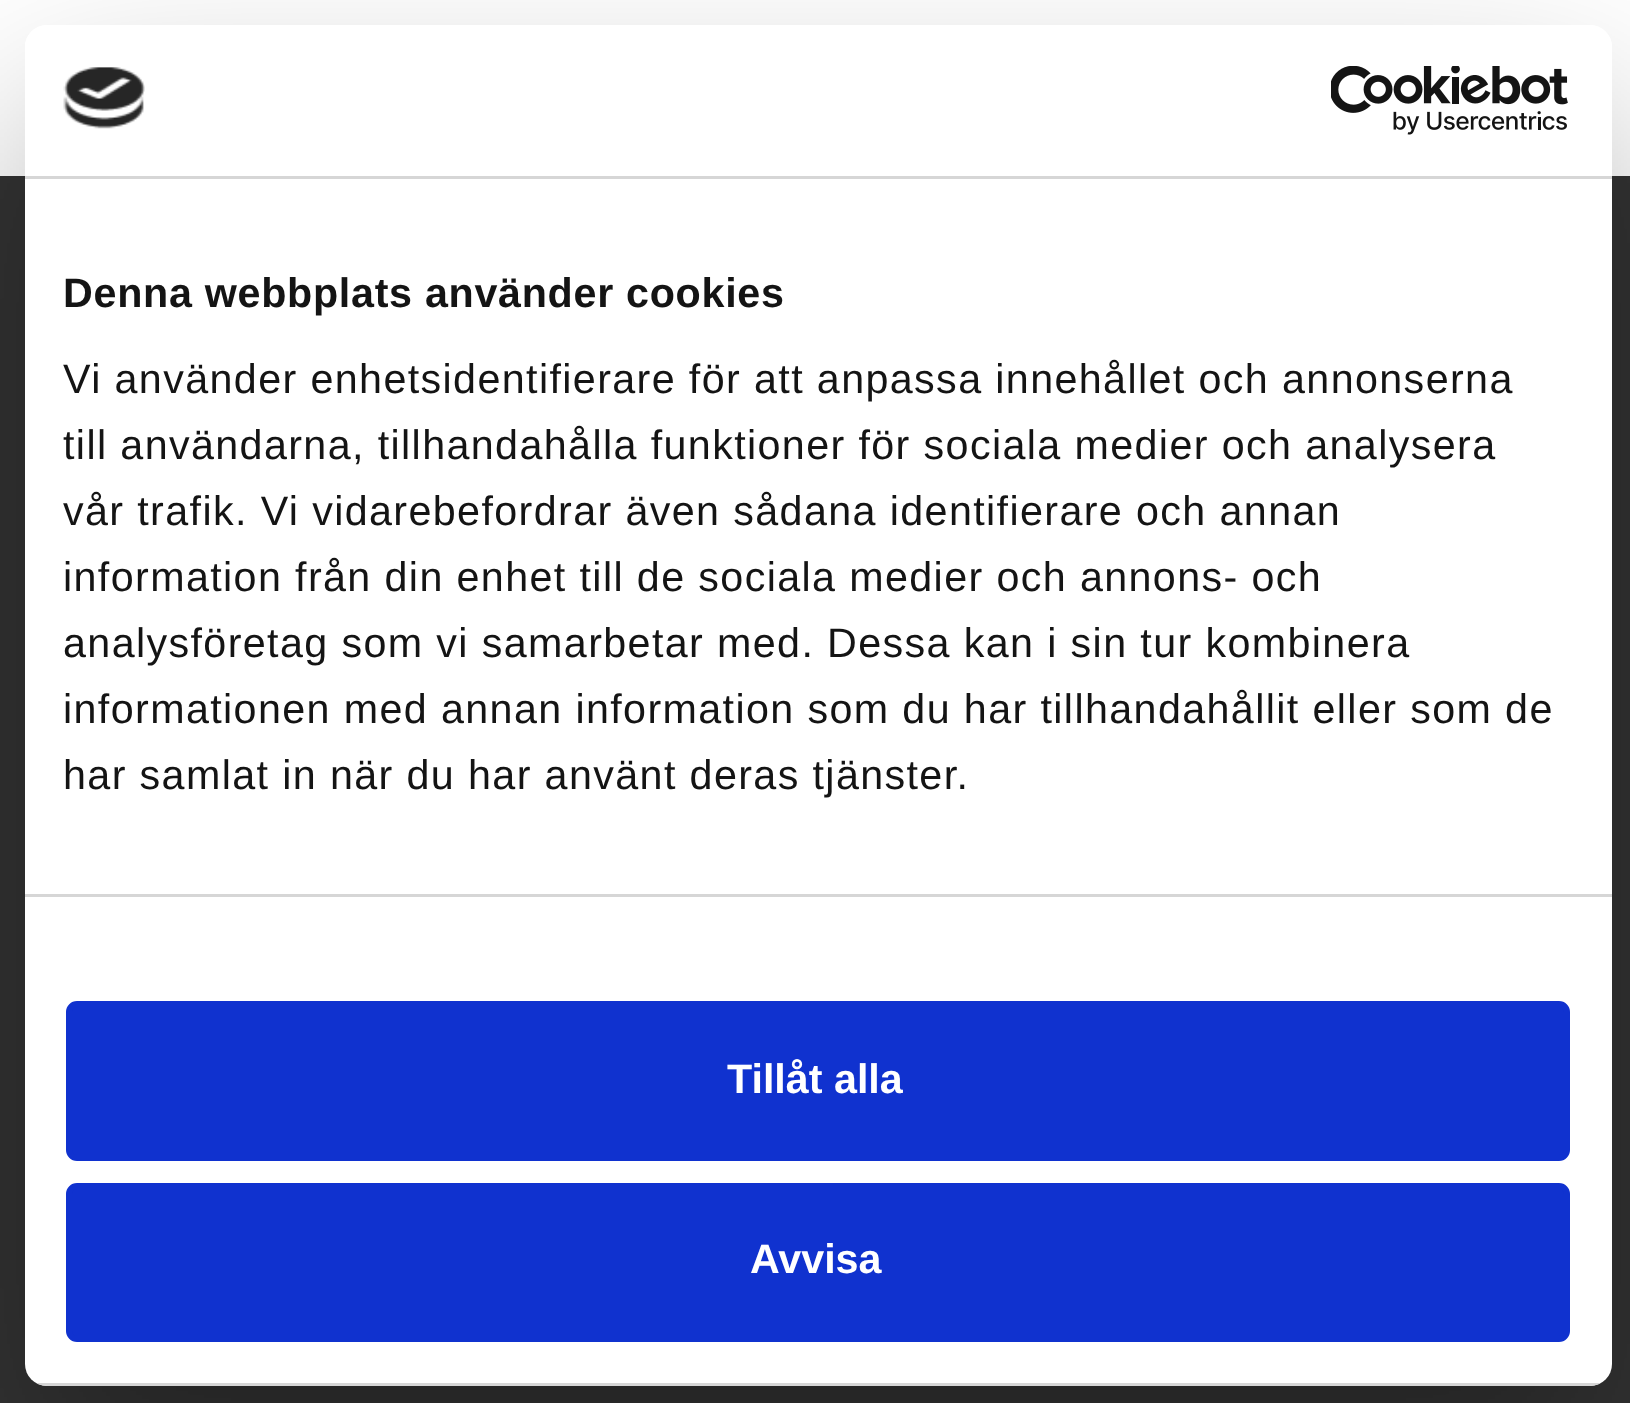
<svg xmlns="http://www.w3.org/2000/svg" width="1630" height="1403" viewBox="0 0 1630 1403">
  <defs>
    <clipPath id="clip1"><path d="M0 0H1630V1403H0ZM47 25H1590C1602 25 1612 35 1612 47V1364C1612 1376 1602 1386 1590 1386H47C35 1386 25 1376 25 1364V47C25 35 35 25 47 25Z" clip-rule="evenodd"/></clipPath>
    <clipPath id="clip2"><rect x="25" y="25" width="1587" height="1361" rx="22"/></clipPath>
  </defs>
  <rect width="100%" height="100%" fill="rgb(51,51,51)"/>
  <rect x="0" y="0" width="1630" height="176" fill="rgb(255,255,255)"/>
  <g clip-path="url(#clip1)">
    <rect x="25" y="113" width="1587" height="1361" rx="22" fill="rgba(0,0,0,0.3)" filter="blur(93.5px)"/>
  </g>
  <rect x="25" y="25" width="1587" height="1361" rx="22" fill="rgb(255,255,255)"/>
  <rect x="25" y="176" width="1587" height="3" fill="rgb(214,214,214)"/>
  <image x="63" y="67" width="82" height="62" href="pic1.png"/>
  <image x="1331" y="66" width="237" height="69" href="pic2.png"/>
  <rect x="25" y="894" width="1587" height="3" fill="rgb(214,214,214)"/>
  <text x="63" y="307" font-family="Liberation Sans" font-size="41.25" font-weight="bold" letter-spacing="0.7" fill="rgb(20,20,20)">Denna webbplats använder cookies</text>
  <g font-family="Liberation Sans" font-size="41.25" letter-spacing="1.38" fill="rgb(20,20,20)">
    <text>
      <tspan x="63" y="393">Vi använder enhetsidentifierare för att anpassa innehållet och annonserna</tspan>
      <tspan x="63" y="459">till användarna, tillhandahålla funktioner för sociala medier och analysera</tspan>
      <tspan x="63" y="525">vår trafik. Vi vidarebefordrar även sådana identifierare och annan</tspan>
      <tspan x="63" y="591">information från din enhet till de sociala medier och annons- och</tspan>
      <tspan x="63" y="657">analysföretag som vi samarbetar med. Dessa kan i sin tur kombinera</tspan>
      <tspan x="63" y="723">informationen med annan information som du har tillhandahållit eller som de</tspan>
      <tspan x="63" y="789">har samlat in när du har använt deras tjänster.</tspan>
    </text>
  </g>
  <g clip-path="url(#clip2)">
    <rect x="36" y="1383" width="1565" height="3" fill="rgb(214,214,214)"/>
  </g>
  <rect x="69" y="1004" width="1498" height="154" rx="8" fill="rgb(16,50,207)" stroke="rgb(16,50,207)" stroke-width="6"/>
  <text x="727" y="1093" font-family="Liberation Sans" font-size="41.25" font-weight="bold" fill="rgb(255,255,255)">Tillåt alla</text>
  <rect x="69" y="1186" width="1498" height="153" rx="8" fill="rgb(16,50,207)" stroke="rgb(16,50,207)" stroke-width="6"/>
  <text x="750" y="1273" font-family="Liberation Sans" font-size="41.25" font-weight="bold" fill="rgb(255,255,255)">Avvisa</text>
</svg>
